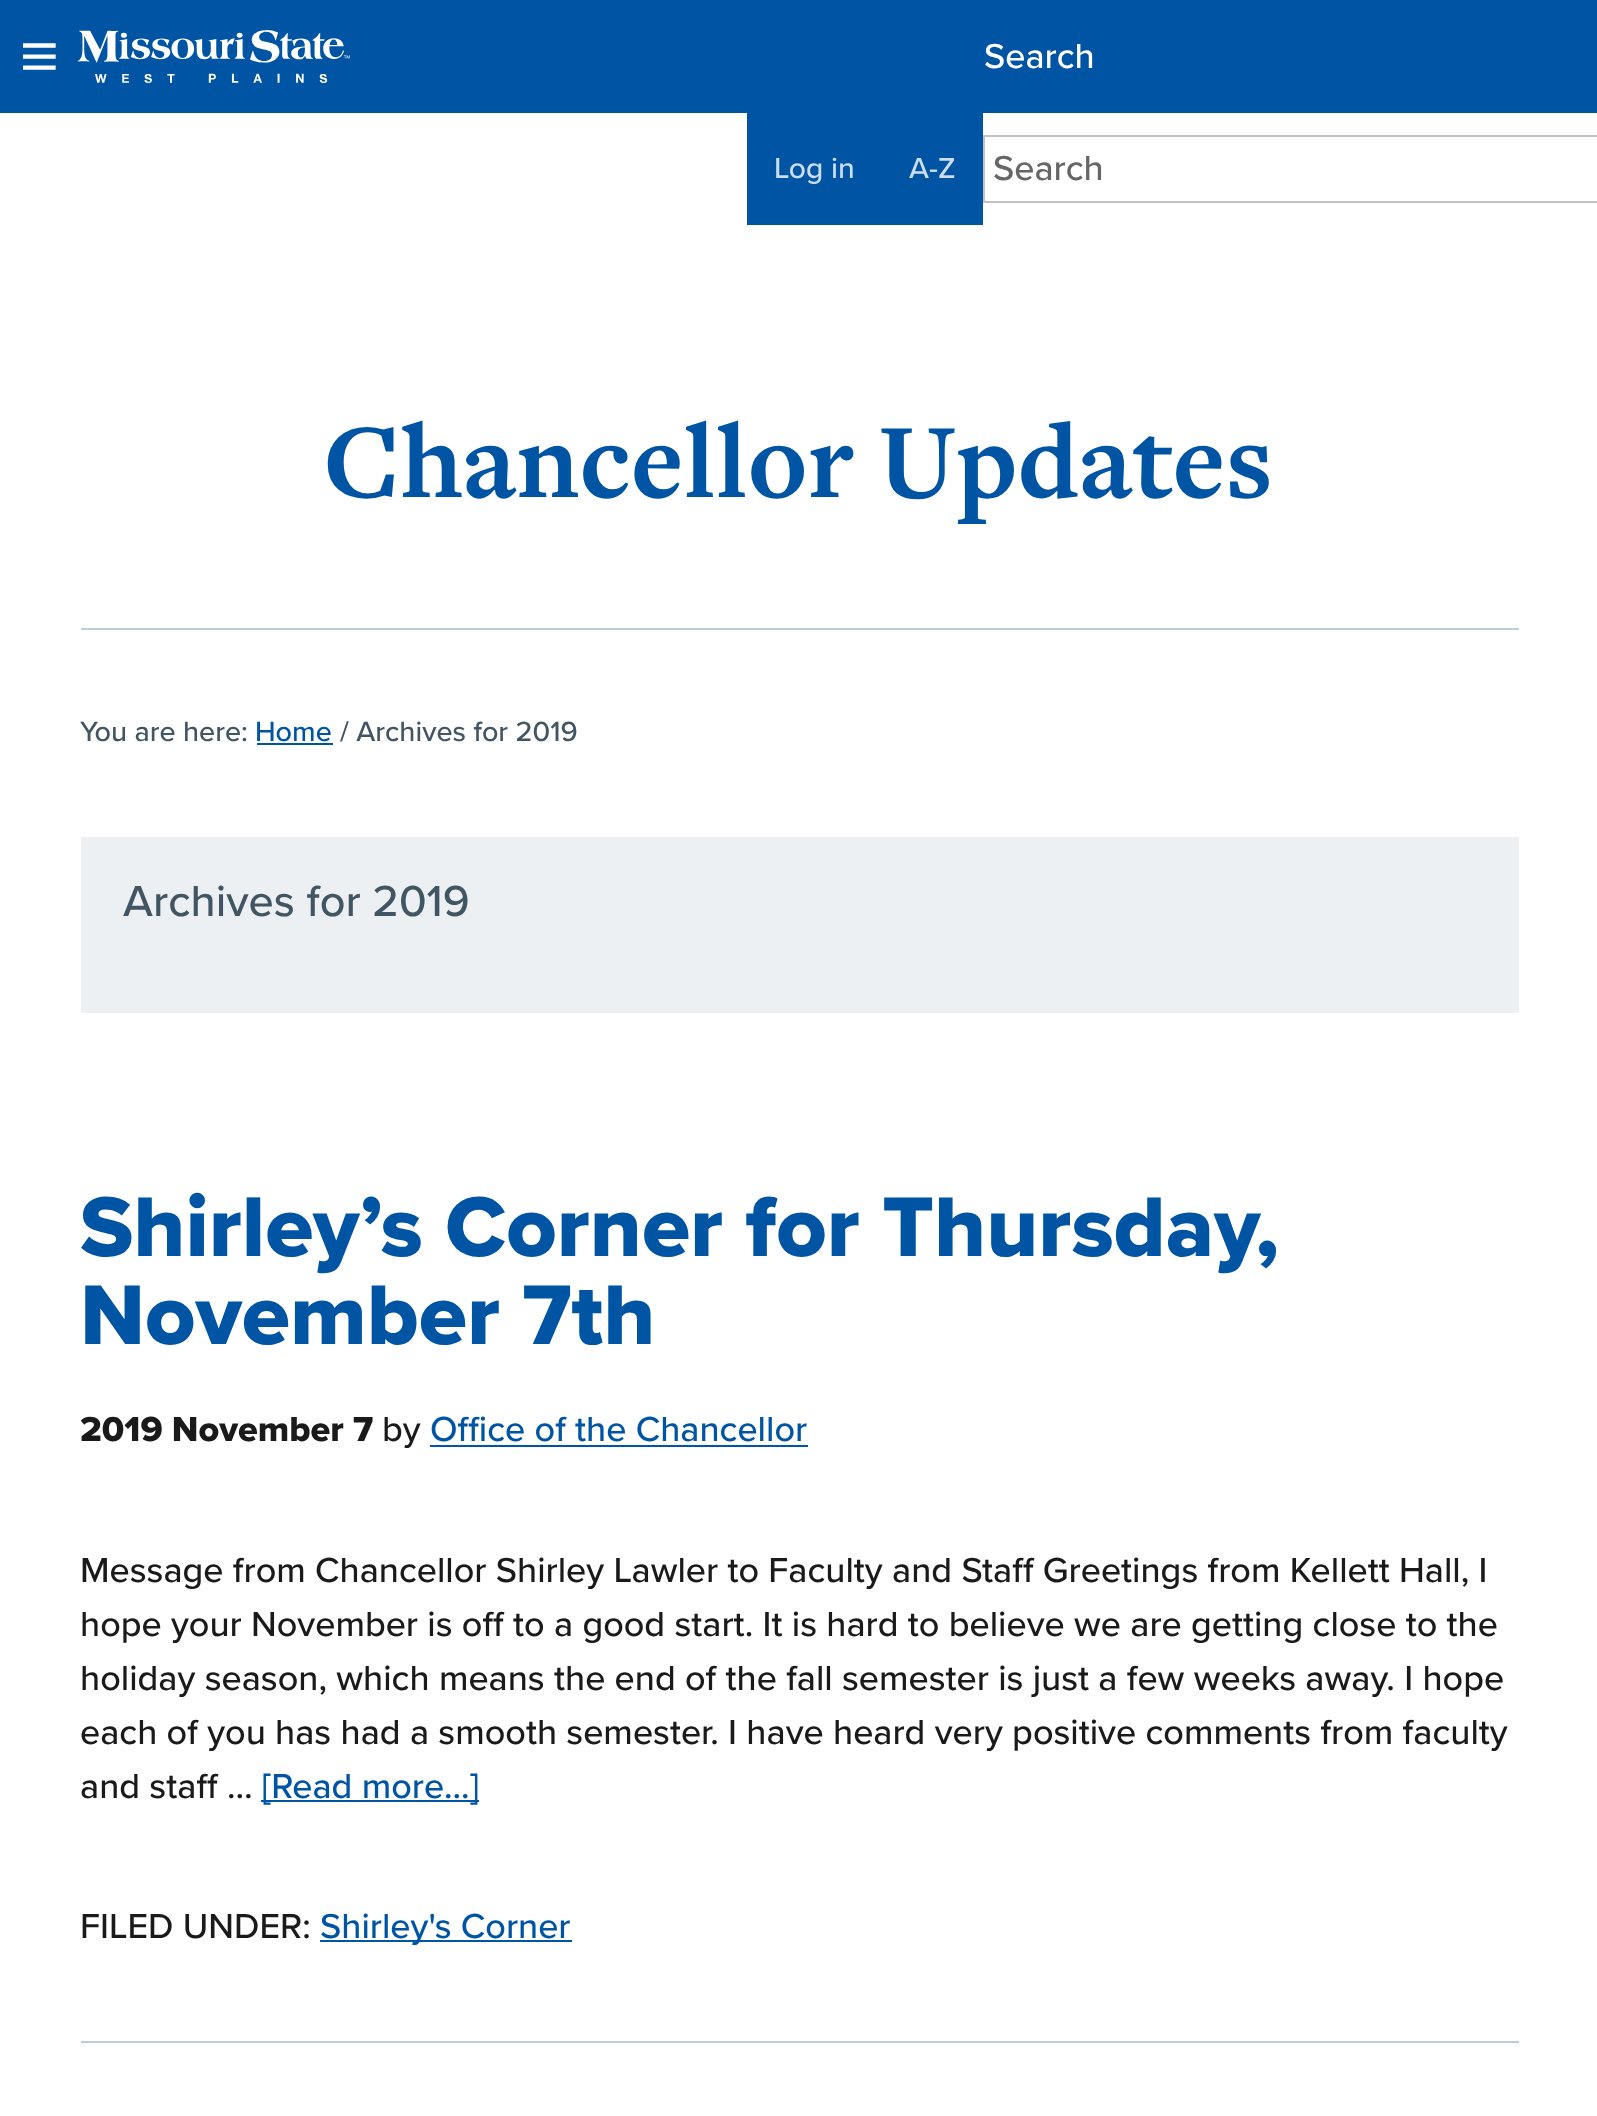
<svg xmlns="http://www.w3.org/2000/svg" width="1597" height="2116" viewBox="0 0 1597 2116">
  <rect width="100%" height="100%" fill="rgb(255,255,255)"/>
  <rect x="0" y="0" width="1597" height="113" fill="rgb(0,84,164)"/>
  <image x="23" y="30" width="327" height="53" href="pic1.png"/>
  <rect x="747" y="113" width="236" height="112" fill="rgb(0,84,164)"/>
  <g font-family="Proxima Nova" font-size="30" font-weight="500" fill="rgb(204,221,237)">
    <text x="774" y="178">Log in</text>
    <text x="909" y="178">A-Z</text>
  </g>
  <text x="984" y="68" font-family="Proxima Nova" font-size="36" font-weight="500" fill="rgb(255,255,255)">Search</text>
  <rect x="984" y="136" width="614" height="66" fill="none" stroke="rgb(194,194,194)" stroke-width="2"/>
  <text x="993" y="180" font-family="Proxima Nova" font-size="36" font-weight="500" fill="rgb(102,102,102)">Search</text>
  <rect x="81" y="628" width="1438" height="2" fill="rgb(191,206,214)"/>
  <text x="323" y="497" font-family="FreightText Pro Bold" font-size="109.75" font-weight="bold" fill="rgb(0,84,164)">Chancellor Updates</text>
  <text x="80" y="741" font-family="Proxima Nova" font-size="28.75" font-weight="500" fill="rgb(66,85,99)">You are here:</text>
  <text x="255" y="741" font-family="Proxima Nova" font-size="28.75" font-weight="500" fill="rgb(0,84,164)">Home</text>
  <rect x="257" y="743" width="76" height="2" fill="rgb(0,84,164)"/>
  <text x="340" y="741" font-family="Proxima Nova" font-size="28.75" font-weight="500" fill="rgb(66,85,99)">/ Archives for 2019</text>
  <rect x="81" y="837" width="1438" height="176" fill="rgb(236,240,243)"/>
  <text x="123" y="916" font-family="Proxima Nova" font-size="45" font-weight="500" fill="rgb(66,85,99)">Archives for 2019</text>
  <rect x="81" y="2041" width="1438" height="2" fill="rgb(191,206,214)"/>
  <g font-family="Proxima Nova" font-size="87.9" font-weight="800" fill="rgb(0,84,164)">
    <text>
      <tspan x="80" y="1256">Shirley’s Corner for Thursday,</tspan>
      <tspan x="80" y="1344">November 7th</tspan>
    </text>
  </g>
  <text x="80" y="1441" font-family="Proxima Nova" font-size="36" font-weight="800" fill="rgb(26,26,26)">2019 November 7</text>
  <text x="382" y="1441" font-family="Proxima Nova" font-size="36" font-weight="500" fill="rgb(26,26,26)">by</text>
  <text x="430" y="1441" font-family="Proxima Nova" font-size="36" font-weight="500" fill="rgb(0,84,164)">Office of the Chancellor</text>
  <rect x="430" y="1445" width="378" height="2" fill="rgb(0,85,164)"/>
  <g font-family="Proxima Nova" font-size="36" font-weight="500" fill="rgb(26,26,26)">
    <text>
      <tspan x="80" y="1582">Message from Chancellor Shirley Lawler to Faculty and Staff Greetings from Kellett Hall, I</tspan>
      <tspan x="80" y="1636">hope your November is off to a good start. It is hard to believe we are getting close to the</tspan>
      <tspan x="80" y="1690">holiday season, which means the end of the fall semester is just a few weeks away. I hope</tspan>
      <tspan x="80" y="1744">each of you has had a smooth semester. I have heard very positive comments from faculty</tspan>
      <tspan x="80" y="1798">and staff …</tspan>
    </text>
  </g>
  <rect x="261" y="1800" width="218" height="2" fill="rgb(0,85,164)"/>
  <text x="262" y="1798" font-family="Proxima Nova" font-size="36" font-weight="500" fill="rgb(0,84,164)">[Read more...]</text>
  <text x="80" y="1938" font-family="Proxima Nova" font-size="36" font-weight="500" fill="rgb(26,26,26)">FILED UNDER:</text>
  <rect x="320" y="1940" width="252" height="2" fill="rgb(0,85,164)"/>
  <text x="320" y="1938" font-family="Proxima Nova" font-size="36" font-weight="500" fill="rgb(0,84,164)">Shirley's Corner</text>
</svg>
